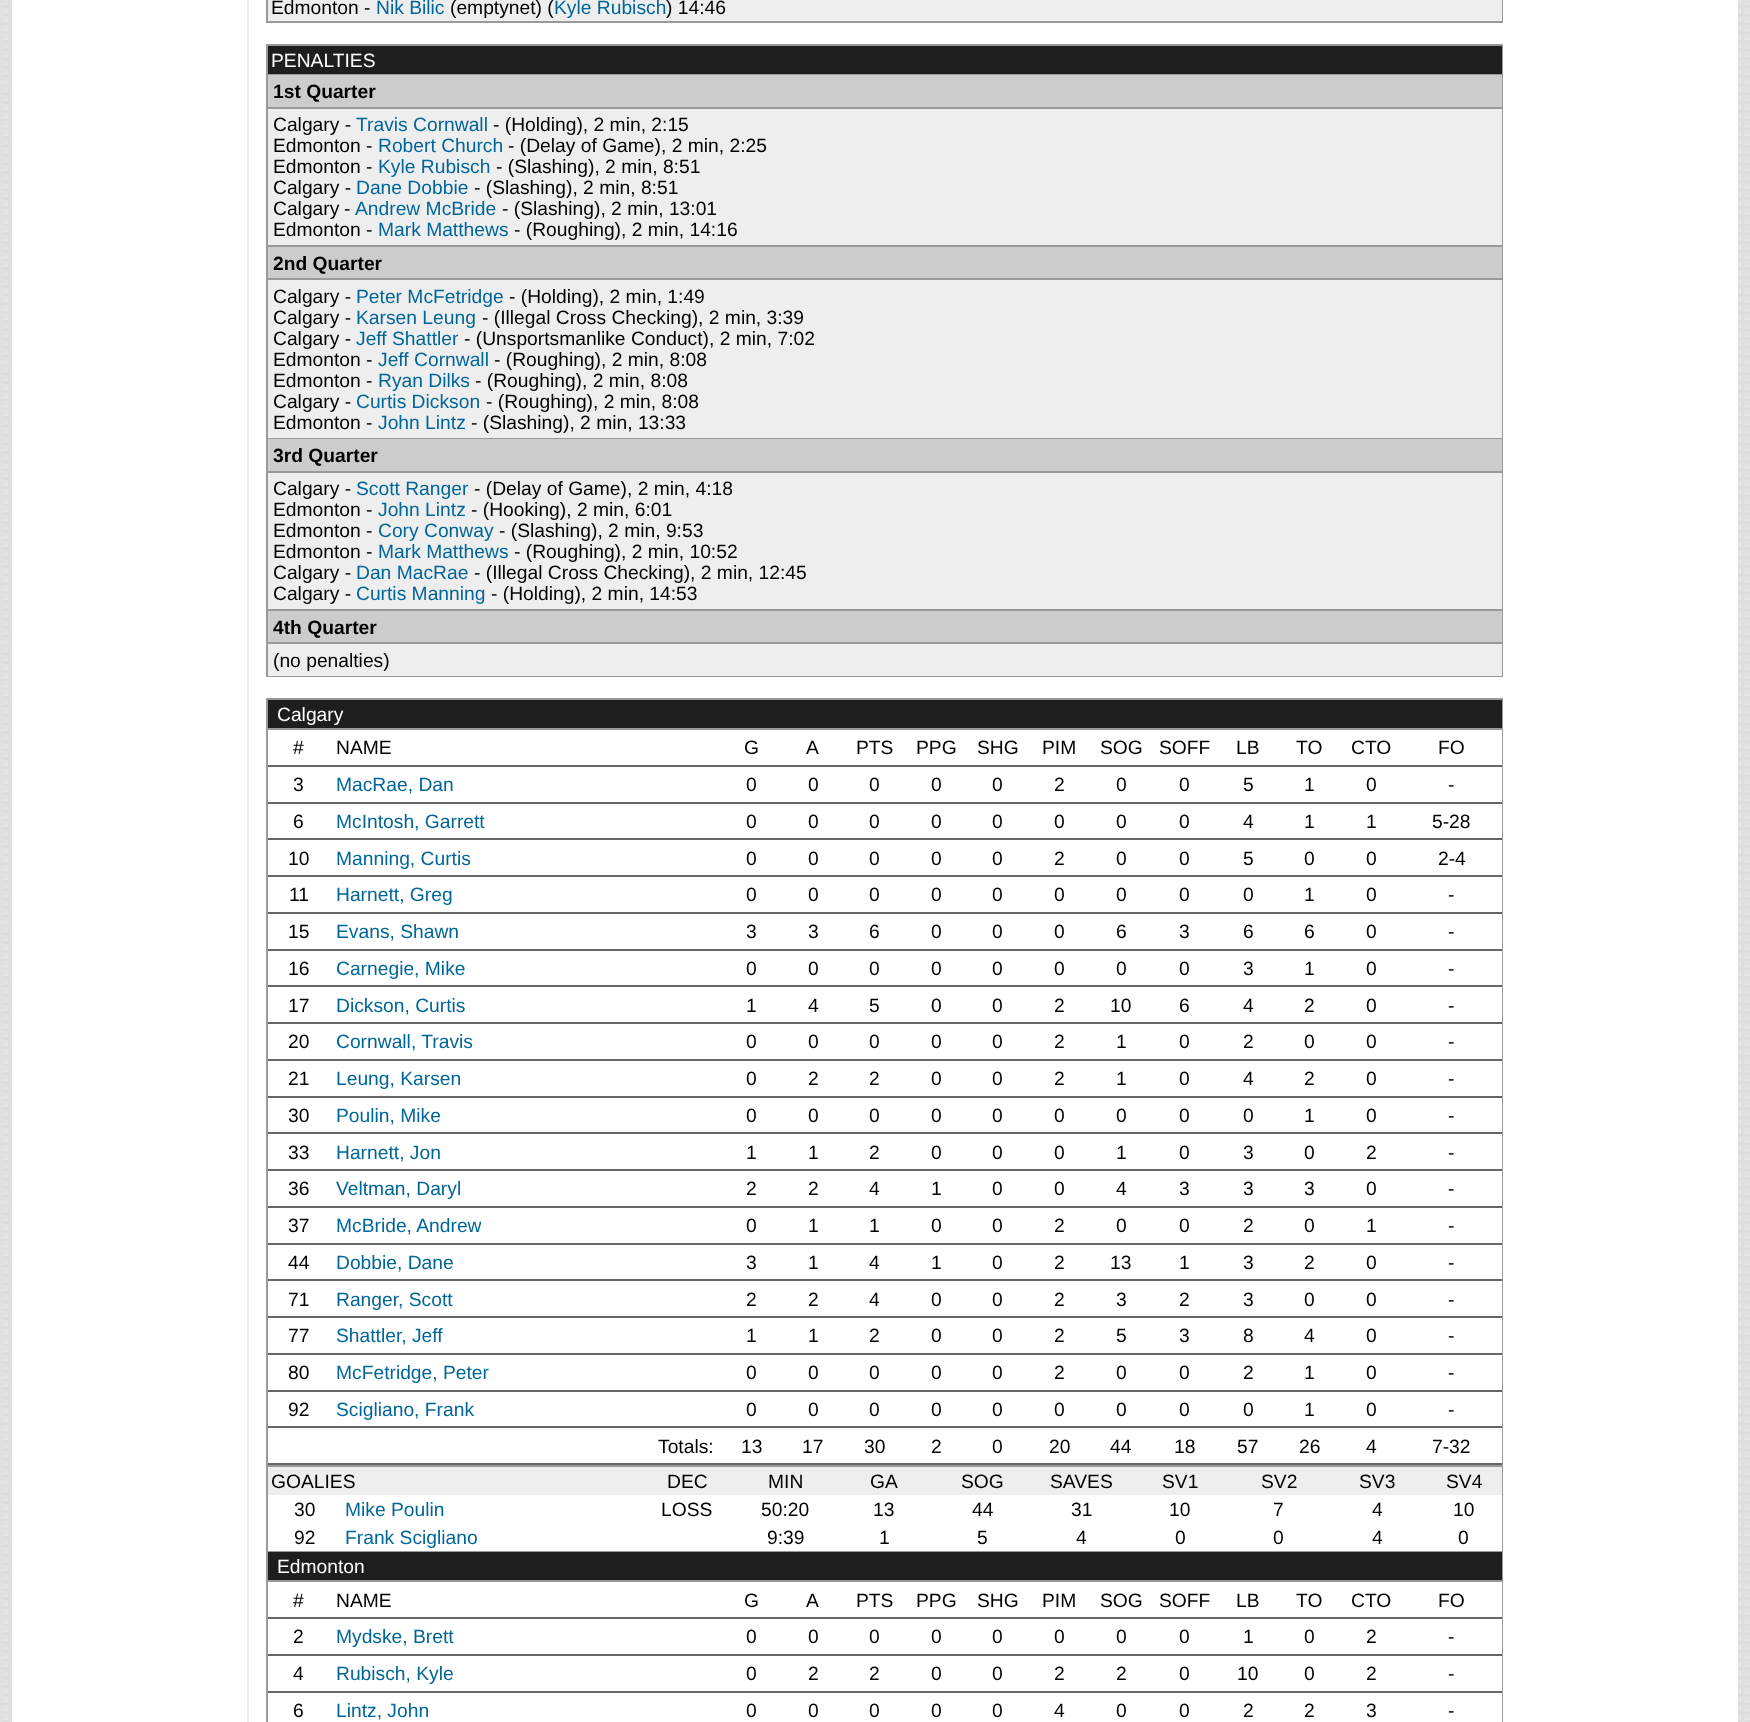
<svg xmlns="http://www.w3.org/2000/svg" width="1750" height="1722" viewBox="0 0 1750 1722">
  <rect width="100%" height="100%" fill="rgb(255,255,255)"/>
  <image x="0" y="0" width="1750" height="1722" href="pic1.png"/>
  <rect x="12" y="0" width="1726" height="1722" fill="rgb(255,255,255)"/>
  <rect x="247" y="0" width="2" height="1722" fill="rgb(238,238,238)"/>
  <rect x="266" y="0" width="1237" height="23" fill="rgb(153,153,153)"/>
  <rect x="268" y="0" width="1234" height="21" fill="rgb(238,238,238)"/>
  <text x="271" y="14" font-family="Liberation Sans" font-size="19.25" fill="rgb(0,0,0)">Edmonton -</text>
  <text x="376" y="14" font-family="Liberation Sans" font-size="19.25" fill="rgb(0,102,153)">Nik Bilic</text>
  <text x="450" y="14" font-family="Liberation Sans" font-size="19.25" fill="rgb(0,0,0)">(emptynet) (</text>
  <text x="554" y="14" font-family="Liberation Sans" font-size="19.25" fill="rgb(0,102,153)">Kyle Rubisch</text>
  <text x="666" y="14" font-family="Liberation Sans" font-size="19.25" fill="rgb(0,0,0)">) 14:46</text>
  <rect x="266" y="44" width="1237" height="633" fill="rgb(153,153,153)"/>
  <rect x="268" y="46" width="1234" height="28" fill="rgb(30,30,30)"/>
  <text x="271" y="67" font-family="Liberation Sans" font-size="19.25" fill="rgb(255,255,255)">PENALTIES</text>
  <rect x="268" y="75" width="1234" height="32" fill="rgb(204,204,204)"/>
  <text x="273" y="98" font-family="Liberation Sans" font-size="19.25" font-weight="bold" fill="rgb(0,0,0)">1st Quarter</text>
  <rect x="268" y="109" width="1234" height="136" fill="rgb(238,238,238)"/>
  <text x="273" y="131" font-family="Liberation Sans" font-size="19.25" fill="rgb(0,0,0)">Calgary -</text>
  <text x="356" y="131" font-family="Liberation Sans" font-size="19.25" fill="rgb(0,102,153)">Travis Cornwall</text>
  <g font-family="Liberation Sans" font-size="19.25" fill="rgb(0,0,0)">
    <text x="493" y="131">- (Holding), 2 min, 2:15</text>
    <text x="273" y="152">Edmonton -</text>
  </g>
  <text x="378" y="152" font-family="Liberation Sans" font-size="19.25" fill="rgb(0,102,153)">Robert Church</text>
  <g font-family="Liberation Sans" font-size="19.25" fill="rgb(0,0,0)">
    <text x="508" y="152">- (Delay of Game), 2 min, 2:25</text>
    <text x="273" y="173">Edmonton -</text>
  </g>
  <text x="378" y="173" font-family="Liberation Sans" font-size="19.25" fill="rgb(0,102,153)">Kyle Rubisch</text>
  <g font-family="Liberation Sans" font-size="19.25" fill="rgb(0,0,0)">
    <text x="496" y="173">- (Slashing), 2 min, 8:51</text>
    <text x="273" y="194">Calgary -</text>
  </g>
  <text x="356" y="194" font-family="Liberation Sans" font-size="19.25" fill="rgb(0,102,153)">Dane Dobbie</text>
  <g font-family="Liberation Sans" font-size="19.25" fill="rgb(0,0,0)">
    <text x="474" y="194">- (Slashing), 2 min, 8:51</text>
    <text x="273" y="215">Calgary</text>
    <text x="344" y="215">-</text>
  </g>
  <text x="355" y="215" font-family="Liberation Sans" font-size="19.25" fill="rgb(0,102,153)">Andrew McBride</text>
  <g font-family="Liberation Sans" font-size="19.25" fill="rgb(0,0,0)">
    <text x="502" y="215">- (Slashing), 2 min, 13:01</text>
    <text x="273" y="236">Edmonton -</text>
  </g>
  <text x="378" y="236" font-family="Liberation Sans" font-size="19.25" fill="rgb(0,102,153)">Mark Matthews</text>
  <text x="514" y="236" font-family="Liberation Sans" font-size="19.25" fill="rgb(0,0,0)">- (Roughing), 2 min, 14:16</text>
  <rect x="268" y="247" width="1234" height="31" fill="rgb(204,204,204)"/>
  <text x="273" y="270" font-family="Liberation Sans" font-size="19.25" font-weight="bold" fill="rgb(0,0,0)">2nd Quarter</text>
  <rect x="268" y="280" width="1234" height="158" fill="rgb(238,238,238)"/>
  <text x="273" y="303" font-family="Liberation Sans" font-size="19.25" fill="rgb(0,0,0)">Calgary -</text>
  <text x="356" y="303" font-family="Liberation Sans" font-size="19.25" fill="rgb(0,102,153)">Peter McFetridge</text>
  <g font-family="Liberation Sans" font-size="19.25" fill="rgb(0,0,0)">
    <text x="509" y="303">- (Holding), 2 min, 1:49</text>
    <text x="273" y="324">Calgary -</text>
  </g>
  <text x="356" y="324" font-family="Liberation Sans" font-size="19.25" fill="rgb(0,102,153)">Karsen Leung</text>
  <g font-family="Liberation Sans" font-size="19.25" fill="rgb(0,0,0)">
    <text x="482" y="324">- (Illegal Cross Checking), 2 min, 3:39</text>
    <text x="273" y="345">Calgary -</text>
  </g>
  <text x="356" y="345" font-family="Liberation Sans" font-size="19.25" fill="rgb(0,102,153)">Jeff Shattler</text>
  <g font-family="Liberation Sans" font-size="19.25" fill="rgb(0,0,0)">
    <text x="464" y="345">- (Unsportsmanlike Conduct), 2 min, 7:02</text>
    <text x="273" y="366">Edmonton -</text>
  </g>
  <text x="378" y="366" font-family="Liberation Sans" font-size="19.25" fill="rgb(0,102,153)">Jeff Cornwall</text>
  <g font-family="Liberation Sans" font-size="19.25" fill="rgb(0,0,0)">
    <text x="494" y="366">- (Roughing), 2 min, 8:08</text>
    <text x="273" y="387">Edmonton -</text>
  </g>
  <text x="378" y="387" font-family="Liberation Sans" font-size="19.25" fill="rgb(0,102,153)">Ryan Dilks</text>
  <g font-family="Liberation Sans" font-size="19.25" fill="rgb(0,0,0)">
    <text x="475" y="387">- (Roughing), 2 min, 8:08</text>
    <text x="273" y="408">Calgary -</text>
  </g>
  <text x="356" y="408" font-family="Liberation Sans" font-size="19.25" fill="rgb(0,102,153)">Curtis Dickson</text>
  <g font-family="Liberation Sans" font-size="19.25" fill="rgb(0,0,0)">
    <text x="486" y="408">- (Roughing), 2 min, 8:08</text>
    <text x="273" y="429">Edmonton -</text>
  </g>
  <text x="378" y="429" font-family="Liberation Sans" font-size="19.25" fill="rgb(0,102,153)">John Lintz</text>
  <text x="471" y="429" font-family="Liberation Sans" font-size="19.25" fill="rgb(0,0,0)">- (Slashing), 2 min, 13:33</text>
  <rect x="268" y="439" width="1234" height="32" fill="rgb(204,204,204)"/>
  <text x="273" y="462" font-family="Liberation Sans" font-size="19.25" font-weight="bold" fill="rgb(0,0,0)">3rd Quarter</text>
  <rect x="268" y="473" width="1234" height="136" fill="rgb(238,238,238)"/>
  <text x="273" y="495" font-family="Liberation Sans" font-size="19.25" fill="rgb(0,0,0)">Calgary -</text>
  <text x="356" y="495" font-family="Liberation Sans" font-size="19.25" fill="rgb(0,102,153)">Scott Ranger</text>
  <g font-family="Liberation Sans" font-size="19.25" fill="rgb(0,0,0)">
    <text x="474" y="495">- (Delay of Game), 2 min, 4:18</text>
    <text x="273" y="516">Edmonton -</text>
  </g>
  <text x="378" y="516" font-family="Liberation Sans" font-size="19.25" fill="rgb(0,102,153)">John Lintz</text>
  <g font-family="Liberation Sans" font-size="19.25" fill="rgb(0,0,0)">
    <text x="471" y="516">- (Hooking), 2 min, 6:01</text>
    <text x="273" y="537">Edmonton -</text>
  </g>
  <text x="378" y="537" font-family="Liberation Sans" font-size="19.25" fill="rgb(0,102,153)">Cory Conway</text>
  <g font-family="Liberation Sans" font-size="19.25" fill="rgb(0,0,0)">
    <text x="499" y="537">- (Slashing), 2 min, 9:53</text>
    <text x="273" y="558">Edmonton -</text>
  </g>
  <text x="378" y="558" font-family="Liberation Sans" font-size="19.25" fill="rgb(0,102,153)">Mark Matthews</text>
  <g font-family="Liberation Sans" font-size="19.25" fill="rgb(0,0,0)">
    <text x="514" y="558">- (Roughing), 2 min, 10:52</text>
    <text x="273" y="579">Calgary -</text>
  </g>
  <text x="356" y="579" font-family="Liberation Sans" font-size="19.25" fill="rgb(0,102,153)">Dan MacRae</text>
  <g font-family="Liberation Sans" font-size="19.25" fill="rgb(0,0,0)">
    <text x="474" y="579">- (Illegal Cross Checking), 2 min, 12:45</text>
    <text x="273" y="600">Calgary -</text>
  </g>
  <text x="356" y="600" font-family="Liberation Sans" font-size="19.25" fill="rgb(0,102,153)">Curtis Manning</text>
  <text x="491" y="600" font-family="Liberation Sans" font-size="19.25" fill="rgb(0,0,0)">- (Holding), 2 min, 14:53</text>
  <rect x="268" y="611" width="1234" height="31" fill="rgb(204,204,204)"/>
  <text x="273" y="634" font-family="Liberation Sans" font-size="19.25" font-weight="bold" fill="rgb(0,0,0)">4th Quarter</text>
  <rect x="268" y="644" width="1234" height="32" fill="rgb(238,238,238)"/>
  <text x="273" y="667" font-family="Liberation Sans" font-size="19.25" fill="rgb(0,0,0)">(no penalties)</text>
  <rect x="266" y="698" width="1237" height="1024" fill="rgb(153,153,153)"/>
  <rect x="268" y="700" width="1234" height="28" fill="rgb(30,30,30)"/>
  <text x="277" y="721" font-family="Liberation Sans" font-size="19.25" fill="rgb(255,255,255)">Calgary</text>
  <rect x="268" y="730" width="1234" height="733" fill="rgb(255,255,255)"/>
  <rect x="268" y="765" width="1234" height="2" fill="rgb(102,102,102)"/>
  <g font-family="Liberation Sans" font-size="19.25" fill="rgb(0,0,0)">
    <text x="293" y="754">#</text>
    <text x="336" y="754">NAME</text>
    <text x="744" y="754">G</text>
    <text x="806" y="754">A</text>
    <text x="856" y="754">PTS</text>
    <text x="916" y="754">PPG</text>
    <text x="977" y="754">SHG</text>
    <text x="1042" y="754">PIM</text>
    <text x="1100" y="754">SOG</text>
    <text x="1159" y="754">SOFF</text>
    <text x="1236" y="754">LB</text>
    <text x="1296" y="754">TO</text>
    <text x="1351" y="754">CTO</text>
    <text x="1438" y="754">FO</text>
  </g>
  <rect x="268" y="802" width="1234" height="2" fill="rgb(102,102,102)"/>
  <text x="293" y="791" font-family="Liberation Sans" font-size="19.25" fill="rgb(0,0,0)">3</text>
  <text x="336" y="791" font-family="Liberation Sans" font-size="19.25" fill="rgb(0,102,153)">MacRae, Dan</text>
  <g font-family="Liberation Sans" font-size="19.25" fill="rgb(0,0,0)">
    <text x="746" y="791">0</text>
    <text x="808" y="791">0</text>
    <text x="869" y="791">0</text>
    <text x="931" y="791">0</text>
    <text x="992" y="791">0</text>
    <text x="1054" y="791">2</text>
    <text x="1116" y="791">0</text>
    <text x="1179" y="791">0</text>
    <text x="1243" y="791">5</text>
    <text x="1304" y="791">1</text>
    <text x="1366" y="791">0</text>
    <text x="1448" y="791">-</text>
  </g>
  <rect x="268" y="838" width="1234" height="2" fill="rgb(102,102,102)"/>
  <text x="293" y="828" font-family="Liberation Sans" font-size="19.25" fill="rgb(0,0,0)">6</text>
  <text x="336" y="828" font-family="Liberation Sans" font-size="19.25" fill="rgb(0,102,153)">McIntosh, Garrett</text>
  <g font-family="Liberation Sans" font-size="19.25" fill="rgb(0,0,0)">
    <text x="746" y="828">0</text>
    <text x="808" y="828">0</text>
    <text x="869" y="828">0</text>
    <text x="931" y="828">0</text>
    <text x="992" y="828">0</text>
    <text x="1054" y="828">0</text>
    <text x="1116" y="828">0</text>
    <text x="1179" y="828">0</text>
    <text x="1243" y="828">4</text>
    <text x="1304" y="828">1</text>
    <text x="1366" y="828">1</text>
    <text x="1432" y="828">5-28</text>
  </g>
  <rect x="268" y="875" width="1234" height="2" fill="rgb(102,102,102)"/>
  <text x="288" y="865" font-family="Liberation Sans" font-size="19.25" fill="rgb(0,0,0)">10</text>
  <text x="336" y="865" font-family="Liberation Sans" font-size="19.25" fill="rgb(0,102,153)">Manning, Curtis</text>
  <g font-family="Liberation Sans" font-size="19.25" fill="rgb(0,0,0)">
    <text x="746" y="865">0</text>
    <text x="808" y="865">0</text>
    <text x="869" y="865">0</text>
    <text x="931" y="865">0</text>
    <text x="992" y="865">0</text>
    <text x="1054" y="865">2</text>
    <text x="1116" y="865">0</text>
    <text x="1179" y="865">0</text>
    <text x="1243" y="865">5</text>
    <text x="1304" y="865">0</text>
    <text x="1366" y="865">0</text>
    <text x="1438" y="865">2-4</text>
  </g>
  <rect x="268" y="912" width="1234" height="2" fill="rgb(102,102,102)"/>
  <text x="289" y="901" font-family="Liberation Sans" font-size="19.25" fill="rgb(0,0,0)">11</text>
  <text x="336" y="901" font-family="Liberation Sans" font-size="19.25" fill="rgb(0,102,153)">Harnett, Greg</text>
  <g font-family="Liberation Sans" font-size="19.25" fill="rgb(0,0,0)">
    <text x="746" y="901">0</text>
    <text x="808" y="901">0</text>
    <text x="869" y="901">0</text>
    <text x="931" y="901">0</text>
    <text x="992" y="901">0</text>
    <text x="1054" y="901">0</text>
    <text x="1116" y="901">0</text>
    <text x="1179" y="901">0</text>
    <text x="1243" y="901">0</text>
    <text x="1304" y="901">1</text>
    <text x="1366" y="901">0</text>
    <text x="1448" y="901">-</text>
  </g>
  <rect x="268" y="949" width="1234" height="2" fill="rgb(102,102,102)"/>
  <text x="288" y="938" font-family="Liberation Sans" font-size="19.25" fill="rgb(0,0,0)">15</text>
  <text x="336" y="938" font-family="Liberation Sans" font-size="19.25" fill="rgb(0,102,153)">Evans, Shawn</text>
  <g font-family="Liberation Sans" font-size="19.25" fill="rgb(0,0,0)">
    <text x="746" y="938">3</text>
    <text x="808" y="938">3</text>
    <text x="869" y="938">6</text>
    <text x="931" y="938">0</text>
    <text x="992" y="938">0</text>
    <text x="1054" y="938">0</text>
    <text x="1116" y="938">6</text>
    <text x="1179" y="938">3</text>
    <text x="1243" y="938">6</text>
    <text x="1304" y="938">6</text>
    <text x="1366" y="938">0</text>
    <text x="1448" y="938">-</text>
  </g>
  <rect x="268" y="985" width="1234" height="2" fill="rgb(102,102,102)"/>
  <text x="288" y="975" font-family="Liberation Sans" font-size="19.25" fill="rgb(0,0,0)">16</text>
  <text x="336" y="975" font-family="Liberation Sans" font-size="19.25" fill="rgb(0,102,153)">Carnegie, Mike</text>
  <g font-family="Liberation Sans" font-size="19.25" fill="rgb(0,0,0)">
    <text x="746" y="975">0</text>
    <text x="808" y="975">0</text>
    <text x="869" y="975">0</text>
    <text x="931" y="975">0</text>
    <text x="992" y="975">0</text>
    <text x="1054" y="975">0</text>
    <text x="1116" y="975">0</text>
    <text x="1179" y="975">0</text>
    <text x="1243" y="975">3</text>
    <text x="1304" y="975">1</text>
    <text x="1366" y="975">0</text>
    <text x="1448" y="975">-</text>
  </g>
  <rect x="268" y="1022" width="1234" height="2" fill="rgb(102,102,102)"/>
  <text x="288" y="1012" font-family="Liberation Sans" font-size="19.25" fill="rgb(0,0,0)">17</text>
  <text x="336" y="1012" font-family="Liberation Sans" font-size="19.25" fill="rgb(0,102,153)">Dickson, Curtis</text>
  <g font-family="Liberation Sans" font-size="19.25" fill="rgb(0,0,0)">
    <text x="746" y="1012">1</text>
    <text x="808" y="1012">4</text>
    <text x="869" y="1012">5</text>
    <text x="931" y="1012">0</text>
    <text x="992" y="1012">0</text>
    <text x="1054" y="1012">2</text>
    <text x="1110" y="1012">10</text>
    <text x="1179" y="1012">6</text>
    <text x="1243" y="1012">4</text>
    <text x="1304" y="1012">2</text>
    <text x="1366" y="1012">0</text>
    <text x="1448" y="1012">-</text>
  </g>
  <rect x="268" y="1059" width="1234" height="2" fill="rgb(102,102,102)"/>
  <text x="288" y="1048" font-family="Liberation Sans" font-size="19.25" fill="rgb(0,0,0)">20</text>
  <text x="336" y="1048" font-family="Liberation Sans" font-size="19.25" fill="rgb(0,102,153)">Cornwall, Travis</text>
  <g font-family="Liberation Sans" font-size="19.25" fill="rgb(0,0,0)">
    <text x="746" y="1048">0</text>
    <text x="808" y="1048">0</text>
    <text x="869" y="1048">0</text>
    <text x="931" y="1048">0</text>
    <text x="992" y="1048">0</text>
    <text x="1054" y="1048">2</text>
    <text x="1116" y="1048">1</text>
    <text x="1179" y="1048">0</text>
    <text x="1243" y="1048">2</text>
    <text x="1304" y="1048">0</text>
    <text x="1366" y="1048">0</text>
    <text x="1448" y="1048">-</text>
  </g>
  <rect x="268" y="1096" width="1234" height="2" fill="rgb(102,102,102)"/>
  <text x="288" y="1085" font-family="Liberation Sans" font-size="19.25" fill="rgb(0,0,0)">21</text>
  <text x="336" y="1085" font-family="Liberation Sans" font-size="19.25" fill="rgb(0,102,153)">Leung, Karsen</text>
  <g font-family="Liberation Sans" font-size="19.25" fill="rgb(0,0,0)">
    <text x="746" y="1085">0</text>
    <text x="808" y="1085">2</text>
    <text x="869" y="1085">2</text>
    <text x="931" y="1085">0</text>
    <text x="992" y="1085">0</text>
    <text x="1054" y="1085">2</text>
    <text x="1116" y="1085">1</text>
    <text x="1179" y="1085">0</text>
    <text x="1243" y="1085">4</text>
    <text x="1304" y="1085">2</text>
    <text x="1366" y="1085">0</text>
    <text x="1448" y="1085">-</text>
  </g>
  <rect x="268" y="1132" width="1234" height="2" fill="rgb(102,102,102)"/>
  <text x="288" y="1122" font-family="Liberation Sans" font-size="19.25" fill="rgb(0,0,0)">30</text>
  <text x="336" y="1122" font-family="Liberation Sans" font-size="19.25" fill="rgb(0,102,153)">Poulin, Mike</text>
  <g font-family="Liberation Sans" font-size="19.25" fill="rgb(0,0,0)">
    <text x="746" y="1122">0</text>
    <text x="808" y="1122">0</text>
    <text x="869" y="1122">0</text>
    <text x="931" y="1122">0</text>
    <text x="992" y="1122">0</text>
    <text x="1054" y="1122">0</text>
    <text x="1116" y="1122">0</text>
    <text x="1179" y="1122">0</text>
    <text x="1243" y="1122">0</text>
    <text x="1304" y="1122">1</text>
    <text x="1366" y="1122">0</text>
    <text x="1448" y="1122">-</text>
  </g>
  <rect x="268" y="1169" width="1234" height="2" fill="rgb(102,102,102)"/>
  <text x="288" y="1159" font-family="Liberation Sans" font-size="19.25" fill="rgb(0,0,0)">33</text>
  <text x="336" y="1159" font-family="Liberation Sans" font-size="19.25" fill="rgb(0,102,153)">Harnett, Jon</text>
  <g font-family="Liberation Sans" font-size="19.25" fill="rgb(0,0,0)">
    <text x="746" y="1159">1</text>
    <text x="808" y="1159">1</text>
    <text x="869" y="1159">2</text>
    <text x="931" y="1159">0</text>
    <text x="992" y="1159">0</text>
    <text x="1054" y="1159">0</text>
    <text x="1116" y="1159">1</text>
    <text x="1179" y="1159">0</text>
    <text x="1243" y="1159">3</text>
    <text x="1304" y="1159">0</text>
    <text x="1366" y="1159">2</text>
    <text x="1448" y="1159">-</text>
  </g>
  <rect x="268" y="1206" width="1234" height="2" fill="rgb(102,102,102)"/>
  <text x="288" y="1195" font-family="Liberation Sans" font-size="19.25" fill="rgb(0,0,0)">36</text>
  <text x="336" y="1195" font-family="Liberation Sans" font-size="19.25" fill="rgb(0,102,153)">Veltman, Daryl</text>
  <g font-family="Liberation Sans" font-size="19.25" fill="rgb(0,0,0)">
    <text x="746" y="1195">2</text>
    <text x="808" y="1195">2</text>
    <text x="869" y="1195">4</text>
    <text x="931" y="1195">1</text>
    <text x="992" y="1195">0</text>
    <text x="1054" y="1195">0</text>
    <text x="1116" y="1195">4</text>
    <text x="1179" y="1195">3</text>
    <text x="1243" y="1195">3</text>
    <text x="1304" y="1195">3</text>
    <text x="1366" y="1195">0</text>
    <text x="1448" y="1195">-</text>
  </g>
  <rect x="268" y="1243" width="1234" height="2" fill="rgb(102,102,102)"/>
  <text x="288" y="1232" font-family="Liberation Sans" font-size="19.25" fill="rgb(0,0,0)">37</text>
  <text x="336" y="1232" font-family="Liberation Sans" font-size="19.25" fill="rgb(0,102,153)">McBride, Andrew</text>
  <g font-family="Liberation Sans" font-size="19.25" fill="rgb(0,0,0)">
    <text x="746" y="1232">0</text>
    <text x="808" y="1232">1</text>
    <text x="869" y="1232">1</text>
    <text x="931" y="1232">0</text>
    <text x="992" y="1232">0</text>
    <text x="1054" y="1232">2</text>
    <text x="1116" y="1232">0</text>
    <text x="1179" y="1232">0</text>
    <text x="1243" y="1232">2</text>
    <text x="1304" y="1232">0</text>
    <text x="1366" y="1232">1</text>
    <text x="1448" y="1232">-</text>
  </g>
  <rect x="268" y="1279" width="1234" height="2" fill="rgb(102,102,102)"/>
  <text x="288" y="1269" font-family="Liberation Sans" font-size="19.25" fill="rgb(0,0,0)">44</text>
  <text x="336" y="1269" font-family="Liberation Sans" font-size="19.25" fill="rgb(0,102,153)">Dobbie, Dane</text>
  <g font-family="Liberation Sans" font-size="19.25" fill="rgb(0,0,0)">
    <text x="746" y="1269">3</text>
    <text x="808" y="1269">1</text>
    <text x="869" y="1269">4</text>
    <text x="931" y="1269">1</text>
    <text x="992" y="1269">0</text>
    <text x="1054" y="1269">2</text>
    <text x="1110" y="1269">13</text>
    <text x="1179" y="1269">1</text>
    <text x="1243" y="1269">3</text>
    <text x="1304" y="1269">2</text>
    <text x="1366" y="1269">0</text>
    <text x="1448" y="1269">-</text>
  </g>
  <rect x="268" y="1316" width="1234" height="2" fill="rgb(102,102,102)"/>
  <text x="288" y="1306" font-family="Liberation Sans" font-size="19.25" fill="rgb(0,0,0)">71</text>
  <text x="336" y="1306" font-family="Liberation Sans" font-size="19.25" fill="rgb(0,102,153)">Ranger, Scott</text>
  <g font-family="Liberation Sans" font-size="19.25" fill="rgb(0,0,0)">
    <text x="746" y="1306">2</text>
    <text x="808" y="1306">2</text>
    <text x="869" y="1306">4</text>
    <text x="931" y="1306">0</text>
    <text x="992" y="1306">0</text>
    <text x="1054" y="1306">2</text>
    <text x="1116" y="1306">3</text>
    <text x="1179" y="1306">2</text>
    <text x="1243" y="1306">3</text>
    <text x="1304" y="1306">0</text>
    <text x="1366" y="1306">0</text>
    <text x="1448" y="1306">-</text>
  </g>
  <rect x="268" y="1353" width="1234" height="2" fill="rgb(102,102,102)"/>
  <text x="288" y="1342" font-family="Liberation Sans" font-size="19.25" fill="rgb(0,0,0)">77</text>
  <text x="336" y="1342" font-family="Liberation Sans" font-size="19.25" fill="rgb(0,102,153)">Shattler, Jeff</text>
  <g font-family="Liberation Sans" font-size="19.25" fill="rgb(0,0,0)">
    <text x="746" y="1342">1</text>
    <text x="808" y="1342">1</text>
    <text x="869" y="1342">2</text>
    <text x="931" y="1342">0</text>
    <text x="992" y="1342">0</text>
    <text x="1054" y="1342">2</text>
    <text x="1116" y="1342">5</text>
    <text x="1179" y="1342">3</text>
    <text x="1243" y="1342">8</text>
    <text x="1304" y="1342">4</text>
    <text x="1366" y="1342">0</text>
    <text x="1448" y="1342">-</text>
  </g>
  <rect x="268" y="1390" width="1234" height="2" fill="rgb(102,102,102)"/>
  <text x="288" y="1379" font-family="Liberation Sans" font-size="19.25" fill="rgb(0,0,0)">80</text>
  <text x="336" y="1379" font-family="Liberation Sans" font-size="19.25" fill="rgb(0,102,153)">McFetridge, Peter</text>
  <g font-family="Liberation Sans" font-size="19.25" fill="rgb(0,0,0)">
    <text x="746" y="1379">0</text>
    <text x="808" y="1379">0</text>
    <text x="869" y="1379">0</text>
    <text x="931" y="1379">0</text>
    <text x="992" y="1379">0</text>
    <text x="1054" y="1379">2</text>
    <text x="1116" y="1379">0</text>
    <text x="1179" y="1379">0</text>
    <text x="1243" y="1379">2</text>
    <text x="1304" y="1379">1</text>
    <text x="1366" y="1379">0</text>
    <text x="1448" y="1379">-</text>
  </g>
  <rect x="268" y="1426" width="1234" height="2" fill="rgb(102,102,102)"/>
  <text x="288" y="1416" font-family="Liberation Sans" font-size="19.25" fill="rgb(0,0,0)">92</text>
  <text x="336" y="1416" font-family="Liberation Sans" font-size="19.25" fill="rgb(0,102,153)">Scigliano, Frank</text>
  <g font-family="Liberation Sans" font-size="19.25" fill="rgb(0,0,0)">
    <text x="746" y="1416">0</text>
    <text x="808" y="1416">0</text>
    <text x="869" y="1416">0</text>
    <text x="931" y="1416">0</text>
    <text x="992" y="1416">0</text>
    <text x="1054" y="1416">0</text>
    <text x="1116" y="1416">0</text>
    <text x="1179" y="1416">0</text>
    <text x="1243" y="1416">0</text>
    <text x="1304" y="1416">1</text>
    <text x="1366" y="1416">0</text>
    <text x="1448" y="1416">-</text>
    <text x="658" y="1453">Totals:</text>
    <text x="741" y="1453">13</text>
    <text x="802" y="1453">17</text>
    <text x="864" y="1453">30</text>
    <text x="931" y="1453">2</text>
    <text x="992" y="1453">0</text>
    <text x="1049" y="1453">20</text>
    <text x="1110" y="1453">44</text>
    <text x="1174" y="1453">18</text>
    <text x="1237" y="1453">57</text>
    <text x="1299" y="1453">26</text>
    <text x="1366" y="1453">4</text>
    <text x="1432" y="1453">7-32</text>
  </g>
  <rect x="268" y="1463" width="1234" height="2" fill="rgb(102,102,102)"/>
  <rect x="268" y="1495" width="1234" height="56" fill="rgb(255,255,255)"/>
  <rect x="268" y="1467" width="1234" height="28" fill="rgb(238,238,238)"/>
  <g font-family="Liberation Sans" font-size="19.25" fill="rgb(0,0,0)">
    <text x="271" y="1488">GOALIES</text>
    <text x="667" y="1488">DEC</text>
    <text x="768" y="1488">MIN</text>
    <text x="870" y="1488">GA</text>
    <text x="961" y="1488">SOG</text>
    <text x="1050" y="1488">SAVES</text>
    <text x="1162" y="1488">SV1</text>
    <text x="1261" y="1488">SV2</text>
    <text x="1359" y="1488">SV3</text>
    <text x="1446" y="1488">SV4</text>
    <text x="294" y="1516">30</text>
  </g>
  <text x="345" y="1516" font-family="Liberation Sans" font-size="19.25" fill="rgb(0,102,153)">Mike Poulin</text>
  <g font-family="Liberation Sans" font-size="19.25" fill="rgb(0,0,0)">
    <text x="661" y="1516">LOSS</text>
    <text x="761" y="1516">50:20</text>
    <text x="873" y="1516">13</text>
    <text x="972" y="1516">44</text>
    <text x="1071" y="1516">31</text>
    <text x="1169" y="1516">10</text>
    <text x="1273" y="1516">7</text>
    <text x="1372" y="1516">4</text>
    <text x="1453" y="1516">10</text>
    <text x="294" y="1544">92</text>
  </g>
  <text x="345" y="1544" font-family="Liberation Sans" font-size="19.25" fill="rgb(0,102,153)">Frank Scigliano</text>
  <g font-family="Liberation Sans" font-size="19.25" fill="rgb(0,0,0)">
    <text x="767" y="1544">9:39</text>
    <text x="879" y="1544">1</text>
    <text x="977" y="1544">5</text>
    <text x="1076" y="1544">4</text>
    <text x="1175" y="1544">0</text>
    <text x="1273" y="1544">0</text>
    <text x="1372" y="1544">4</text>
    <text x="1458" y="1544">0</text>
  </g>
  <rect x="268" y="1552" width="1234" height="28" fill="rgb(30,30,30)"/>
  <text x="277" y="1573" font-family="Liberation Sans" font-size="19.25" fill="rgb(255,255,255)">Edmonton</text>
  <rect x="268" y="1582" width="1234" height="140" fill="rgb(255,255,255)"/>
  <rect x="268" y="1617" width="1234" height="2" fill="rgb(102,102,102)"/>
  <g font-family="Liberation Sans" font-size="19.25" fill="rgb(0,0,0)">
    <text x="293" y="1607">#</text>
    <text x="336" y="1607">NAME</text>
    <text x="744" y="1607">G</text>
    <text x="806" y="1607">A</text>
    <text x="856" y="1607">PTS</text>
    <text x="916" y="1607">PPG</text>
    <text x="977" y="1607">SHG</text>
    <text x="1042" y="1607">PIM</text>
    <text x="1100" y="1607">SOG</text>
    <text x="1159" y="1607">SOFF</text>
    <text x="1236" y="1607">LB</text>
    <text x="1296" y="1607">TO</text>
    <text x="1351" y="1607">CTO</text>
    <text x="1438" y="1607">FO</text>
  </g>
  <rect x="268" y="1654" width="1234" height="2" fill="rgb(102,102,102)"/>
  <text x="293" y="1643" font-family="Liberation Sans" font-size="19.25" fill="rgb(0,0,0)">2</text>
  <text x="336" y="1643" font-family="Liberation Sans" font-size="19.25" fill="rgb(0,102,153)">Mydske, Brett</text>
  <g font-family="Liberation Sans" font-size="19.25" fill="rgb(0,0,0)">
    <text x="746" y="1643">0</text>
    <text x="808" y="1643">0</text>
    <text x="869" y="1643">0</text>
    <text x="931" y="1643">0</text>
    <text x="992" y="1643">0</text>
    <text x="1054" y="1643">0</text>
    <text x="1116" y="1643">0</text>
    <text x="1179" y="1643">0</text>
    <text x="1243" y="1643">1</text>
    <text x="1304" y="1643">0</text>
    <text x="1366" y="1643">2</text>
    <text x="1448" y="1643">-</text>
  </g>
  <rect x="268" y="1691" width="1234" height="2" fill="rgb(102,102,102)"/>
  <text x="293" y="1680" font-family="Liberation Sans" font-size="19.25" fill="rgb(0,0,0)">4</text>
  <text x="336" y="1680" font-family="Liberation Sans" font-size="19.25" fill="rgb(0,102,153)">Rubisch, Kyle</text>
  <g font-family="Liberation Sans" font-size="19.25" fill="rgb(0,0,0)">
    <text x="746" y="1680">0</text>
    <text x="808" y="1680">2</text>
    <text x="869" y="1680">2</text>
    <text x="931" y="1680">0</text>
    <text x="992" y="1680">0</text>
    <text x="1054" y="1680">2</text>
    <text x="1116" y="1680">2</text>
    <text x="1179" y="1680">0</text>
    <text x="1237" y="1680">10</text>
    <text x="1304" y="1680">0</text>
    <text x="1366" y="1680">2</text>
    <text x="1448" y="1680">-</text>
    <text x="293" y="1717">6</text>
  </g>
  <text x="336" y="1717" font-family="Liberation Sans" font-size="19.25" fill="rgb(0,102,153)">Lintz, John</text>
  <g font-family="Liberation Sans" font-size="19.25" fill="rgb(0,0,0)">
    <text x="746" y="1717">0</text>
    <text x="808" y="1717">0</text>
    <text x="869" y="1717">0</text>
    <text x="931" y="1717">0</text>
    <text x="992" y="1717">0</text>
    <text x="1054" y="1717">4</text>
    <text x="1116" y="1717">0</text>
    <text x="1179" y="1717">0</text>
    <text x="1243" y="1717">2</text>
    <text x="1304" y="1717">2</text>
    <text x="1366" y="1717">3</text>
    <text x="1448" y="1717">-</text>
  </g>
</svg>
